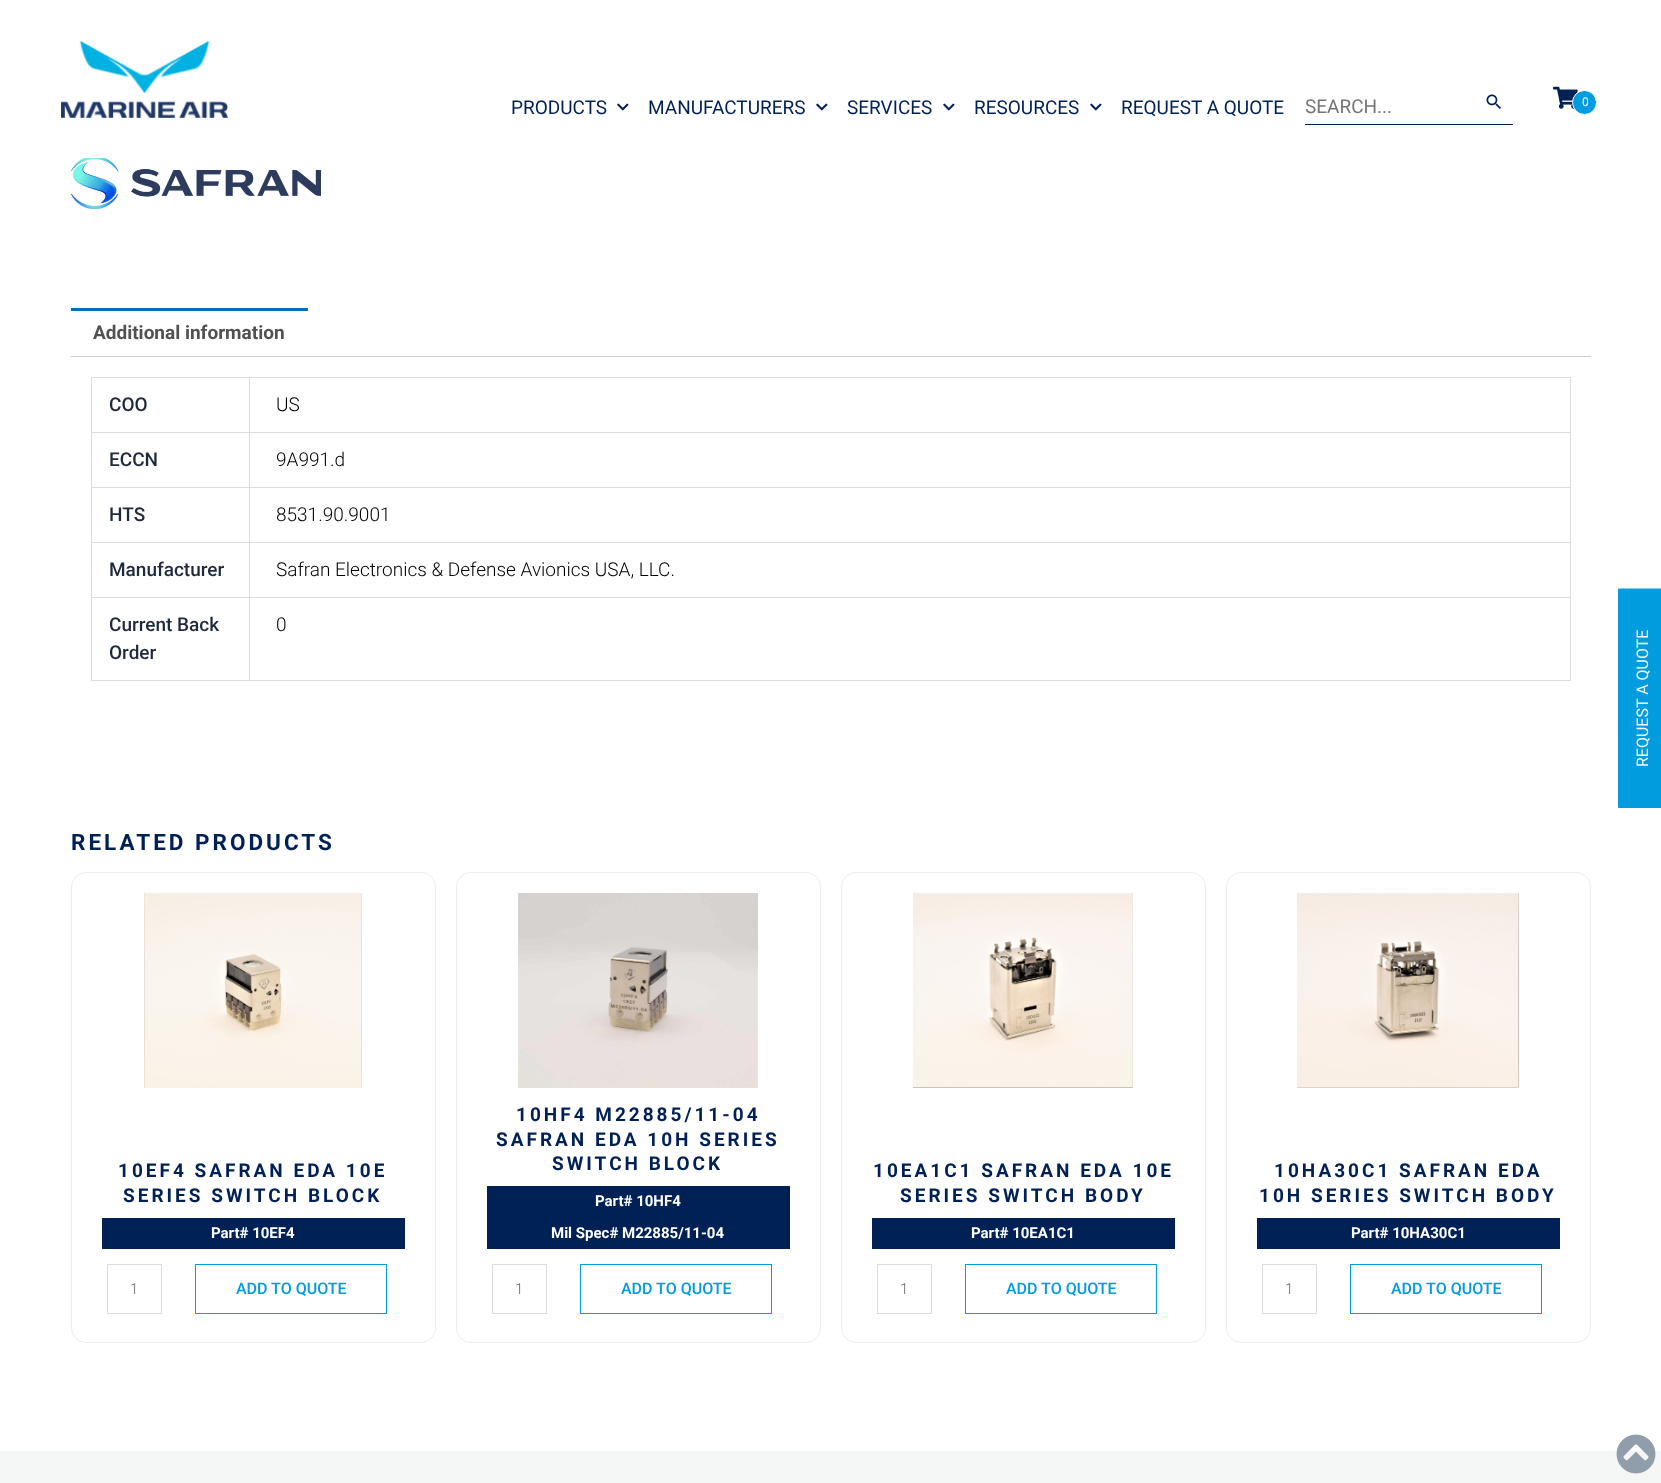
<svg xmlns="http://www.w3.org/2000/svg" width="1661" height="1483" viewBox="0 0 1661 1483">
  <rect width="100%" height="100%" fill="rgb(255,255,255)"/>
  <image x="61" y="41" width="167" height="77" href="pic1.png"/>
  <text x="511" y="114" font-family="Roboto" font-size="19" fill="rgb(0,33,86)">PRODUCTS</text>
  <image x="617" y="103" width="12" height="8" href="pic2.png"/>
  <text x="648" y="114" font-family="Roboto" font-size="19" fill="rgb(0,33,86)">MANUFACTURERS</text>
  <image x="816" y="103" width="12" height="8" href="pic2.png"/>
  <text x="847" y="114" font-family="Roboto" font-size="19" fill="rgb(0,33,86)">SERVICES</text>
  <image x="943" y="103" width="12" height="8" href="pic2.png"/>
  <text x="974" y="114" font-family="Roboto" font-size="19" fill="rgb(0,33,86)">RESOURCES</text>
  <image x="1090" y="103" width="12" height="8" href="pic2.png"/>
  <text x="1121" y="114" font-family="Roboto" font-size="19" fill="rgb(0,33,86)">REQUEST A QUOTE</text>
  <rect x="1305" y="124" width="208" height="1" fill="rgb(0,33,86)"/>
  <text x="1305" y="113" font-family="Roboto" font-size="19" fill="rgb(117,117,117)">SEARCH...</text>
  <image x="1486" y="94" width="15" height="15" href="pic3.png"/>
  <image x="1553" y="86" width="25" height="23" href="pic4.png"/>
  <circle cx="1584.5" cy="102.5" r="12" fill="rgb(0,156,222)" stroke="rgb(255,255,255)"/>
  <text x="1582" y="106" font-family="Roboto" font-size="12" fill="rgb(255,255,255)">0</text>
  <rect x="1619" y="589" width="42" height="218" fill="rgb(0,156,222)"/>
  <path d="M1618.5 807.5V589H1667.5V807.5Z" fill="none" stroke="rgb(0,156,222)"/>
  <text x="1648" y="767" transform="rotate(-90 1648 767)" font-family="Roboto" font-size="16" fill="rgb(245,246,246)">REQUEST A QUOTE</text>
  <image x="71" y="158" width="250" height="51" href="pic5.png"/>
  <rect x="71" y="308" width="237" height="3" fill="rgb(1,112,185)"/>
  <text x="93" y="339" font-family="Roboto" font-size="19" font-weight="bold" fill="rgb(81,81,81)">Additional information</text>
  <rect x="71" y="356" width="1520" height="1" fill="rgb(211,206,210)"/>
  <rect x="91" y="377" width="1480" height="1" fill="rgb(221,221,221)"/>
  <rect x="249" y="378" width="1" height="303" fill="rgb(221,221,221)"/>
  <rect x="91" y="432" width="159" height="1" fill="rgb(221,221,221)"/>
  <rect x="91" y="378" width="1" height="55" fill="rgb(221,221,221)"/>
  <text x="109" y="411" font-family="Roboto" font-size="19" font-weight="500" fill="rgb(30,41,59)">COO</text>
  <rect x="1570" y="378" width="1" height="303" fill="rgb(221,221,221)"/>
  <rect x="250" y="432" width="1321" height="1" fill="rgb(221,221,221)"/>
  <text x="276" y="411" font-family="Roboto" font-size="19" font-weight="300" fill="rgb(0,0,0)">US</text>
  <rect x="91" y="487" width="1480" height="1" fill="rgb(221,221,221)"/>
  <rect x="91" y="433" width="1" height="55" fill="rgb(221,221,221)"/>
  <text x="109" y="466" font-family="Roboto" font-size="19" font-weight="500" fill="rgb(30,41,59)">ECCN</text>
  <text x="276" y="466" font-family="Roboto" font-size="19" font-weight="300" fill="rgb(0,0,0)">9A991.d</text>
  <rect x="91" y="542" width="1480" height="1" fill="rgb(221,221,221)"/>
  <rect x="91" y="488" width="1" height="55" fill="rgb(221,221,221)"/>
  <text x="109" y="521" font-family="Roboto" font-size="19" font-weight="500" fill="rgb(30,41,59)">HTS</text>
  <text x="276" y="521" font-family="Roboto" font-size="19" font-weight="300" fill="rgb(0,0,0)">8531.90.9001</text>
  <rect x="91" y="597" width="1480" height="1" fill="rgb(221,221,221)"/>
  <rect x="91" y="543" width="1" height="55" fill="rgb(221,221,221)"/>
  <text x="109" y="576" font-family="Roboto" font-size="19" font-weight="500" fill="rgb(30,41,59)">Manufacturer</text>
  <text x="276" y="576" font-family="Roboto" font-size="19" font-weight="300" fill="rgb(0,0,0)">Safran Electronics &amp; Defense Avionics USA, LLC.</text>
  <rect x="91" y="680" width="1480" height="1" fill="rgb(221,221,221)"/>
  <rect x="91" y="598" width="1" height="83" fill="rgb(221,221,221)"/>
  <g font-family="Roboto" font-size="19" font-weight="500" fill="rgb(30,41,59)">
    <text>
      <tspan x="109" y="631">Current Back</tspan>
      <tspan x="109" y="659">Order</tspan>
    </text>
  </g>
  <text x="276" y="631" font-family="Roboto" font-size="19" font-weight="300" fill="rgb(0,0,0)">0</text>
  <text x="71" y="850" font-family="Roboto" font-size="22.5" font-weight="bold" letter-spacing="3" fill="rgb(0,33,86)">RELATED PRODUCTS</text>
  <rect x="71.5" y="872.5" width="364" height="470" rx="14.5" fill="none" stroke="rgb(237,237,237)"/>
  <image x="144" y="893" width="218" height="195" href="pic6.png"/>
  <g font-family="Roboto" font-size="19" font-weight="bold" letter-spacing="3" fill="rgb(0,33,86)">
    <text x="118" y="1177">10EF4 SAFRAN EDA 10E</text>
    <text x="123" y="1202">SERIES SWITCH BLOCK</text>
  </g>
  <rect x="102" y="1218" width="303" height="31" fill="rgb(0,33,86)"/>
  <text x="211" y="1238" font-family="Roboto" font-size="15" font-weight="bold" fill="rgb(255,255,255)">Part# 10EF4</text>
  <rect x="107.5" y="1264.5" width="54" height="49" fill="none" stroke="rgb(221,221,221)"/>
  <text x="130" y="1294" font-family="Roboto" font-size="15" font-weight="300" fill="rgb(102,102,102)">1</text>
  <rect x="195.5" y="1264.5" width="191" height="49" fill="none" stroke="rgb(0,156,222)"/>
  <text x="236" y="1294" font-family="Roboto" font-size="16" font-weight="500" fill="rgb(0,156,222)">ADD TO QUOTE</text>
  <rect x="456.5" y="872.5" width="364" height="470" rx="14.5" fill="none" stroke="rgb(237,237,237)"/>
  <image x="518" y="893" width="240" height="195" href="pic7.png"/>
  <g font-family="Roboto" font-size="19" font-weight="bold" letter-spacing="3" fill="rgb(0,33,86)">
    <text x="516" y="1121">10HF4 M22885/11-04</text>
    <text x="496" y="1146">SAFRAN EDA 10H SERIES</text>
    <text x="552" y="1170">SWITCH BLOCK</text>
  </g>
  <rect x="487" y="1186" width="303" height="63" fill="rgb(0,33,86)"/>
  <g font-family="Roboto" font-size="15" font-weight="bold" fill="rgb(255,255,255)">
    <text x="595" y="1206">Part# 10HF4</text>
    <text x="551" y="1238">Mil Spec# M22885/11-04</text>
  </g>
  <rect x="492.5" y="1264.5" width="54" height="49" fill="none" stroke="rgb(221,221,221)"/>
  <text x="515" y="1294" font-family="Roboto" font-size="15" font-weight="300" fill="rgb(102,102,102)">1</text>
  <rect x="580.5" y="1264.5" width="191" height="49" fill="none" stroke="rgb(0,156,222)"/>
  <text x="621" y="1294" font-family="Roboto" font-size="16" font-weight="500" fill="rgb(0,156,222)">ADD TO QUOTE</text>
  <rect x="841.5" y="872.5" width="364" height="470" rx="14.5" fill="none" stroke="rgb(237,237,237)"/>
  <image x="913" y="893" width="220" height="195" href="pic8.png"/>
  <g font-family="Roboto" font-size="19" font-weight="bold" letter-spacing="3" fill="rgb(0,33,86)">
    <text x="873" y="1177">10EA1C1 SAFRAN EDA 10E</text>
    <text x="900" y="1202">SERIES SWITCH BODY</text>
  </g>
  <rect x="872" y="1218" width="303" height="31" fill="rgb(0,33,86)"/>
  <text x="971" y="1238" font-family="Roboto" font-size="15" font-weight="bold" fill="rgb(255,255,255)">Part# 10EA1C1</text>
  <rect x="877.5" y="1264.5" width="54" height="49" fill="none" stroke="rgb(221,221,221)"/>
  <text x="900" y="1294" font-family="Roboto" font-size="15" font-weight="300" fill="rgb(102,102,102)">1</text>
  <rect x="965.5" y="1264.5" width="191" height="49" fill="none" stroke="rgb(0,156,222)"/>
  <text x="1006" y="1294" font-family="Roboto" font-size="16" font-weight="500" fill="rgb(0,156,222)">ADD TO QUOTE</text>
  <rect x="1226.5" y="872.5" width="364" height="470" rx="14.5" fill="none" stroke="rgb(237,237,237)"/>
  <image x="1297" y="893" width="222" height="195" href="pic9.png"/>
  <g font-family="Roboto" font-size="19" font-weight="bold" letter-spacing="3" fill="rgb(0,33,86)">
    <text x="1274" y="1177">10HA30C1 SAFRAN EDA</text>
    <text x="1259" y="1202">10H SERIES SWITCH BODY</text>
  </g>
  <rect x="1257" y="1218" width="303" height="31" fill="rgb(0,33,86)"/>
  <text x="1351" y="1238" font-family="Roboto" font-size="15" font-weight="bold" fill="rgb(255,255,255)">Part# 10HA30C1</text>
  <rect x="1262.5" y="1264.5" width="54" height="49" fill="none" stroke="rgb(221,221,221)"/>
  <text x="1285" y="1294" font-family="Roboto" font-size="15" font-weight="300" fill="rgb(102,102,102)">1</text>
  <rect x="1350.5" y="1264.5" width="191" height="49" fill="none" stroke="rgb(0,156,222)"/>
  <text x="1391" y="1294" font-family="Roboto" font-size="16" font-weight="500" fill="rgb(0,156,222)">ADD TO QUOTE</text>
  <rect x="0" y="1451" width="1661" height="32" fill="rgb(245,246,246)"/>
  <image x="1616" y="1434" width="40" height="40" href="pic10.png"/>
</svg>
